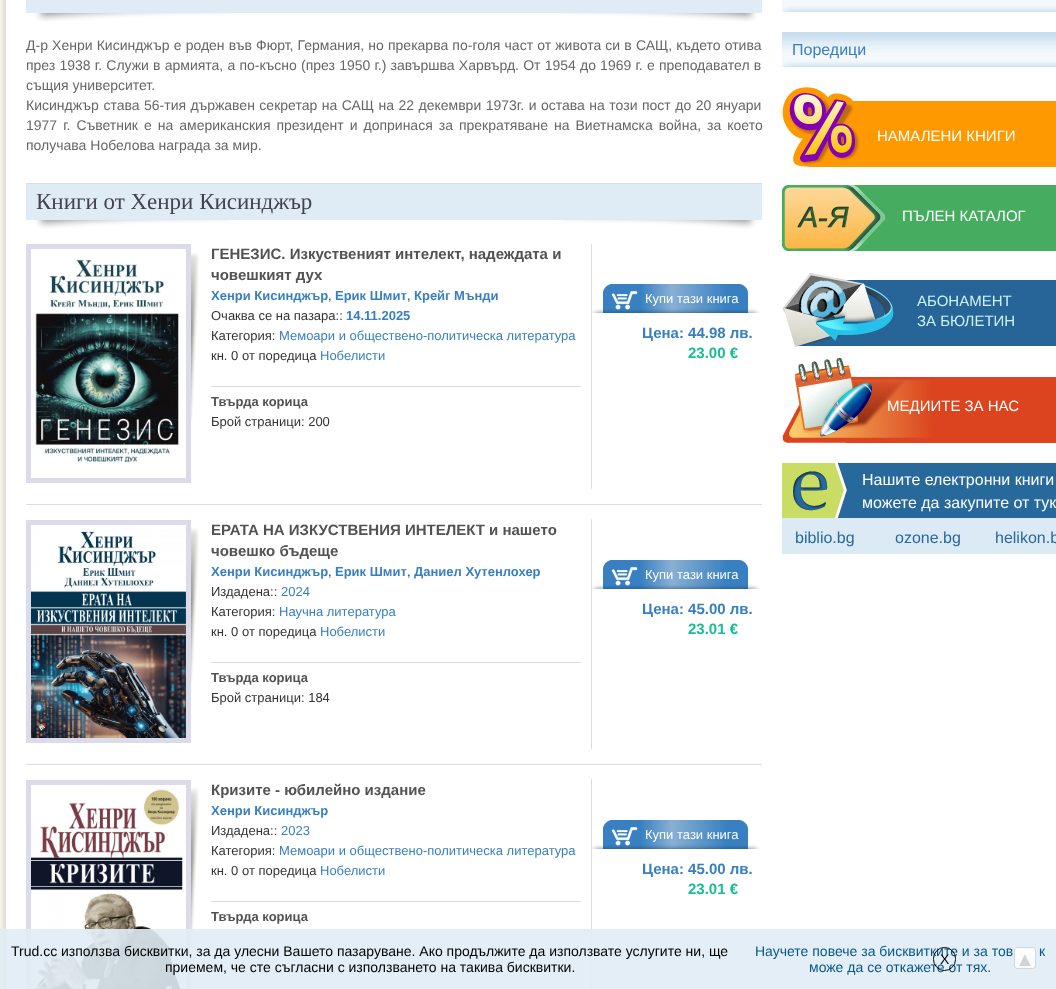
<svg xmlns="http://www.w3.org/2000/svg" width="1056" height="989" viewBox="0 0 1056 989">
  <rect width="100%" height="100%" fill="rgb(244,241,232)"/>
  <image x="2" y="0" width="4" height="989" href="pic1.png"/>
  <rect x="6" y="0" width="776" height="989" fill="rgb(255,255,255)"/>
  <rect x="26" y="0" width="736" height="12" fill="rgb(224,236,245)"/>
  <image x="26" y="12" width="736" height="10" href="pic2.png"/>
  <rect x="26" y="183" width="736" height="1" fill="rgb(221,221,221)"/>
  <g font-family="Liberation Sans" font-size="14" fill="rgb(102,102,102)">
    <text>
      <tspan x="26" y="50" word-spacing="0.25">Д-р Хенри Кисинджър е роден във Фюрт, Германия, но прекарва по-голя част от живота си в САЩ, където отива</tspan>
      <tspan x="26" y="70" word-spacing="0.3">през 1938 г. Служи в армията, а по-късно (през 1950 г.) завършва Харвърд. От 1954 до 1969 г. е преподавател в</tspan>
      <tspan x="26" y="90">същия университет.</tspan>
      <tspan x="26" y="110" word-spacing="0.6">Кисинджър става 56-тия държавен секретар на САЩ на 22 декември 1973г. и остава на този пост до 20 януари</tspan>
      <tspan x="26" y="130" word-spacing="2.1">1977 г. Съветник е на американския президент и допринася за прекратяване на Виетнамска война, за което</tspan>
      <tspan x="26" y="150">получава Нобелова награда за мир.</tspan>
    </text>
  </g>
  <rect x="26" y="184" width="736" height="35" fill="rgb(224,236,245)"/>
  <text x="36" y="209" font-family="Liberation Serif" font-size="23" fill="rgb(66,66,81)">Книги от Хенри Кисинджър</text>
  <image x="26" y="219" width="736" height="10" href="pic2.png"/>
  <rect x="26" y="504" width="736" height="1" fill="rgb(221,221,221)"/>
  <image x="191" y="253" width="8" height="167" href="pic3.png"/>
  <rect x="28.5" y="246.5" width="160" height="234" fill="none" stroke="rgb(219,219,234)" stroke-width="5"/>
  <image x="34" y="252" width="152" height="211" href="pic4.png"/>
  <g font-family="Liberation Sans" font-size="15" font-weight="bold" fill="rgb(82,82,82)">
    <text>
      <tspan x="211" y="259">ГЕНЕЗИС. Изкуственият интелект, надеждата и</tspan>
      <tspan x="211" y="280">човешкият дух</tspan>
    </text>
  </g>
  <text x="211" y="300" font-family="Liberation Sans" font-size="13" font-weight="bold" fill="rgb(56,127,191)">Хенри Кисинджър</text>
  <text x="328" y="300" font-family="Liberation Sans" font-size="13" fill="rgb(51,51,51)">,</text>
  <text x="335" y="300" font-family="Liberation Sans" font-size="13" font-weight="bold" fill="rgb(56,127,191)">Ерик Шмит</text>
  <text x="407" y="300" font-family="Liberation Sans" font-size="13" fill="rgb(51,51,51)">,</text>
  <text x="414" y="300" font-family="Liberation Sans" font-size="13" font-weight="bold" fill="rgb(56,127,191)">Крейг Мънди</text>
  <text x="211" y="320" font-family="Liberation Sans" font-size="13" fill="rgb(51,51,51)">Очаква се на пазара::</text>
  <text x="346" y="320" font-family="Liberation Sans" font-size="13" font-weight="bold" fill="rgb(56,127,191)">14.11.2025</text>
  <text x="211" y="340" font-family="Liberation Sans" font-size="13" fill="rgb(51,51,51)">Категория:</text>
  <text x="279" y="340" font-family="Liberation Sans" font-size="13" fill="rgb(56,127,191)">Мемоари и обществено-политическа литература</text>
  <rect x="211" y="386" width="370" height="1" fill="rgb(221,221,221)"/>
  <text x="211" y="360" font-family="Liberation Sans" font-size="13" fill="rgb(51,51,51)">кн. 0 от поредица</text>
  <text x="320" y="360" font-family="Liberation Sans" font-size="13" fill="rgb(56,127,191)">Нобелисти</text>
  <text x="211" y="406" font-family="Liberation Sans" font-size="13" font-weight="bold" fill="rgb(82,82,82)">Твърда корица</text>
  <text x="211" y="426" font-family="Liberation Sans" font-size="13" fill="rgb(51,51,51)">Брой страници: 200</text>
  <rect x="591" y="244" width="1" height="245" fill="rgb(221,221,221)"/>
  <image x="592" y="284" width="168" height="29" href="pic5.png"/>
  <text x="645" y="303" font-family="Liberation Sans" font-size="13" fill="rgb(255,255,255)">Купи тази книга</text>
  <text x="642" y="338" font-family="Liberation Sans" font-size="15" font-weight="bold" fill="rgb(56,127,191)">Цена: 44.98 лв.</text>
  <text x="688" y="358" font-family="Liberation Sans" font-size="15" font-weight="bold" fill="rgb(26,188,150)">23.00 €</text>
  <rect x="26" y="764" width="736" height="1" fill="rgb(221,221,221)"/>
  <image x="191" y="528" width="8" height="157" href="pic6.png"/>
  <rect x="28.5" y="522.5" width="160" height="218" fill="none" stroke="rgb(219,219,234)" stroke-width="5"/>
  <image x="31" y="528" width="155" height="210" href="pic7.png"/>
  <g font-family="Liberation Sans" font-size="15" font-weight="bold" fill="rgb(82,82,82)">
    <text>
      <tspan x="211" y="535">ЕРАТА НА ИЗКУСТВЕНИЯ ИНТЕЛЕКТ и нашето</tspan>
      <tspan x="211" y="556">човешко бъдеще</tspan>
    </text>
  </g>
  <text x="211" y="576" font-family="Liberation Sans" font-size="13" font-weight="bold" fill="rgb(56,127,191)">Хенри Кисинджър</text>
  <text x="328" y="576" font-family="Liberation Sans" font-size="13" fill="rgb(51,51,51)">,</text>
  <text x="335" y="576" font-family="Liberation Sans" font-size="13" font-weight="bold" fill="rgb(56,127,191)">Ерик Шмит</text>
  <text x="407" y="576" font-family="Liberation Sans" font-size="13" fill="rgb(51,51,51)">,</text>
  <text x="414" y="576" font-family="Liberation Sans" font-size="13" font-weight="bold" fill="rgb(56,127,191)">Даниел Хутенлохер</text>
  <text x="211" y="596" font-family="Liberation Sans" font-size="13" fill="rgb(51,51,51)">Издадена::</text>
  <text x="281" y="596" font-family="Liberation Sans" font-size="13" fill="rgb(56,127,191)">2024</text>
  <text x="211" y="616" font-family="Liberation Sans" font-size="13" fill="rgb(51,51,51)">Категория:</text>
  <text x="279" y="616" font-family="Liberation Sans" font-size="13" fill="rgb(56,127,191)">Научна литература</text>
  <rect x="211" y="662" width="370" height="1" fill="rgb(221,221,221)"/>
  <text x="211" y="636" font-family="Liberation Sans" font-size="13" fill="rgb(51,51,51)">кн. 0 от поредица</text>
  <text x="320" y="636" font-family="Liberation Sans" font-size="13" fill="rgb(56,127,191)">Нобелисти</text>
  <text x="211" y="682" font-family="Liberation Sans" font-size="13" font-weight="bold" fill="rgb(82,82,82)">Твърда корица</text>
  <text x="211" y="702" font-family="Liberation Sans" font-size="13" fill="rgb(51,51,51)">Брой страници: 184</text>
  <rect x="591" y="519" width="1" height="230" fill="rgb(221,221,221)"/>
  <image x="592" y="560" width="168" height="29" href="pic5.png"/>
  <text x="645" y="579" font-family="Liberation Sans" font-size="13" fill="rgb(255,255,255)">Купи тази книга</text>
  <text x="642" y="614" font-family="Liberation Sans" font-size="15" font-weight="bold" fill="rgb(56,127,191)">Цена: 45.00 лв.</text>
  <text x="688" y="634" font-family="Liberation Sans" font-size="15" font-weight="bold" fill="rgb(26,188,150)">23.01 €</text>
  <image x="191" y="788" width="8" height="160" href="pic8.png"/>
  <rect x="28.5" y="782.5" width="160" height="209" fill="none" stroke="rgb(219,219,234)" stroke-width="5"/>
  <image x="31" y="788" width="155" height="201" href="pic9.png"/>
  <text x="211" y="795" font-family="Liberation Sans" font-size="15" font-weight="bold" fill="rgb(82,82,82)">Кризите - юбилейно издание</text>
  <text x="211" y="815" font-family="Liberation Sans" font-size="13" font-weight="bold" fill="rgb(56,127,191)">Хенри Кисинджър</text>
  <text x="211" y="835" font-family="Liberation Sans" font-size="13" fill="rgb(51,51,51)">Издадена::</text>
  <text x="281" y="835" font-family="Liberation Sans" font-size="13" fill="rgb(56,127,191)">2023</text>
  <text x="211" y="855" font-family="Liberation Sans" font-size="13" fill="rgb(51,51,51)">Категория:</text>
  <text x="279" y="855" font-family="Liberation Sans" font-size="13" fill="rgb(56,127,191)">Мемоари и обществено-политическа литература</text>
  <rect x="211" y="901" width="370" height="1" fill="rgb(221,221,221)"/>
  <text x="211" y="875" font-family="Liberation Sans" font-size="13" fill="rgb(51,51,51)">кн. 0 от поредица</text>
  <text x="320" y="875" font-family="Liberation Sans" font-size="13" fill="rgb(56,127,191)">Нобелисти</text>
  <text x="211" y="921" font-family="Liberation Sans" font-size="13" font-weight="bold" fill="rgb(82,82,82)">Твърда корица</text>
  <rect x="591" y="779" width="1" height="210" fill="rgb(221,221,221)"/>
  <image x="592" y="820" width="168" height="29" href="pic5.png"/>
  <text x="645" y="839" font-family="Liberation Sans" font-size="13" fill="rgb(255,255,255)">Купи тази книга</text>
  <text x="642" y="874" font-family="Liberation Sans" font-size="15" font-weight="bold" fill="rgb(56,127,191)">Цена: 45.00 лв.</text>
  <text x="688" y="894" font-family="Liberation Sans" font-size="15" font-weight="bold" fill="rgb(26,188,150)">23.01 €</text>
  <rect x="782" y="12" width="274" height="977" fill="rgb(255,255,255)"/>
  <image x="782" y="0" width="274" height="12" href="pic10.png"/>
  <image x="782" y="32" width="274" height="35" href="pic11.png"/>
  <text x="792" y="55" font-family="Liberation Sans" font-size="16" fill="rgb(56,127,191)">Поредици</text>
  <image x="782" y="87" width="274" height="80" href="pic12.png"/>
  <text x="877" y="141" font-family="Liberation Sans" font-size="15" fill="rgb(255,255,255)">НАМАЛЕНИ КНИГИ</text>
  <image x="782" y="185" width="274" height="66" href="pic13.png"/>
  <text x="902" y="221" font-family="Liberation Sans" font-size="15" fill="rgb(255,255,255)">ПЪЛЕН КАТАЛОГ</text>
  <image x="782" y="273" width="274" height="74" href="pic14.png"/>
  <g font-family="Liberation Sans" font-size="15" fill="rgb(205,241,248)">
    <text>
      <tspan x="917" y="306">АБОНАМЕНТ</tspan>
      <tspan x="917" y="326">ЗА БЮЛЕТИН</tspan>
    </text>
  </g>
  <image x="782" y="358" width="274" height="85" href="pic15.png"/>
  <text x="887" y="411" font-family="Liberation Sans" font-size="15" fill="rgb(255,255,255)">МЕДИИТЕ ЗА НАС</text>
  <rect x="782" y="518" width="274" height="36" fill="rgb(220,234,246)"/>
  <image x="782" y="463" width="274" height="55" href="pic16.png"/>
  <g font-family="Liberation Sans" font-size="16" fill="rgb(255,255,255)">
    <text>
      <tspan x="862" y="485">Нашите електронни книги</tspan>
      <tspan x="862" y="508">можете да закупите от тук</tspan>
    </text>
  </g>
  <g font-family="Liberation Sans" font-size="16" fill="rgb(40,105,157)">
    <text x="795" y="543">biblio.bg</text>
    <text x="895" y="543">ozone.bg</text>
    <text x="995" y="543">helikon.b</text>
  </g>
  <rect x="0" y="929" width="1056" height="60" fill="rgba(224,236,245,0.9)"/>
  <text x="11" y="956" font-family="Liberation Sans" font-size="14" fill="rgb(0,0,0)">Trud.cc използва бисквитки, за да улесни Вашето пазаруване. Ако продължите да използвате услугите ни, ще</text>
  <g font-family="Liberation Sans" font-size="14" fill="rgb(7,87,137)">
    <text x="755" y="956">Научете повече за бисквитките и за тов</text>
    <text x="1039" y="956">к</text>
    <text x="809" y="972">може да се откажете от тях.</text>
  </g>
  <rect x="933.5" y="947.5" width="22" height="23" rx="11" fill="none" stroke="rgb(0,0,0)"/>
  <g font-family="Liberation Sans" font-size="14" fill="rgb(0,0,0)">
    <text x="940" y="964">X</text>
    <text x="165" y="972">приемем, че сте съгласни с използването на такива бисквитки.</text>
  </g>
  <rect x="1014" y="947" width="22" height="22" rx="3" fill="rgba(255,255,255,0.8)"/>
  <rect x="1014.5" y="947.5" width="21" height="21" rx="2.5" fill="none" stroke="rgba(204,204,204,0.8)"/>
  <text x="1015" y="966" font-family="Liberation Sans" font-size="20" fill="rgb(211,211,211)">▲</text>
</svg>
